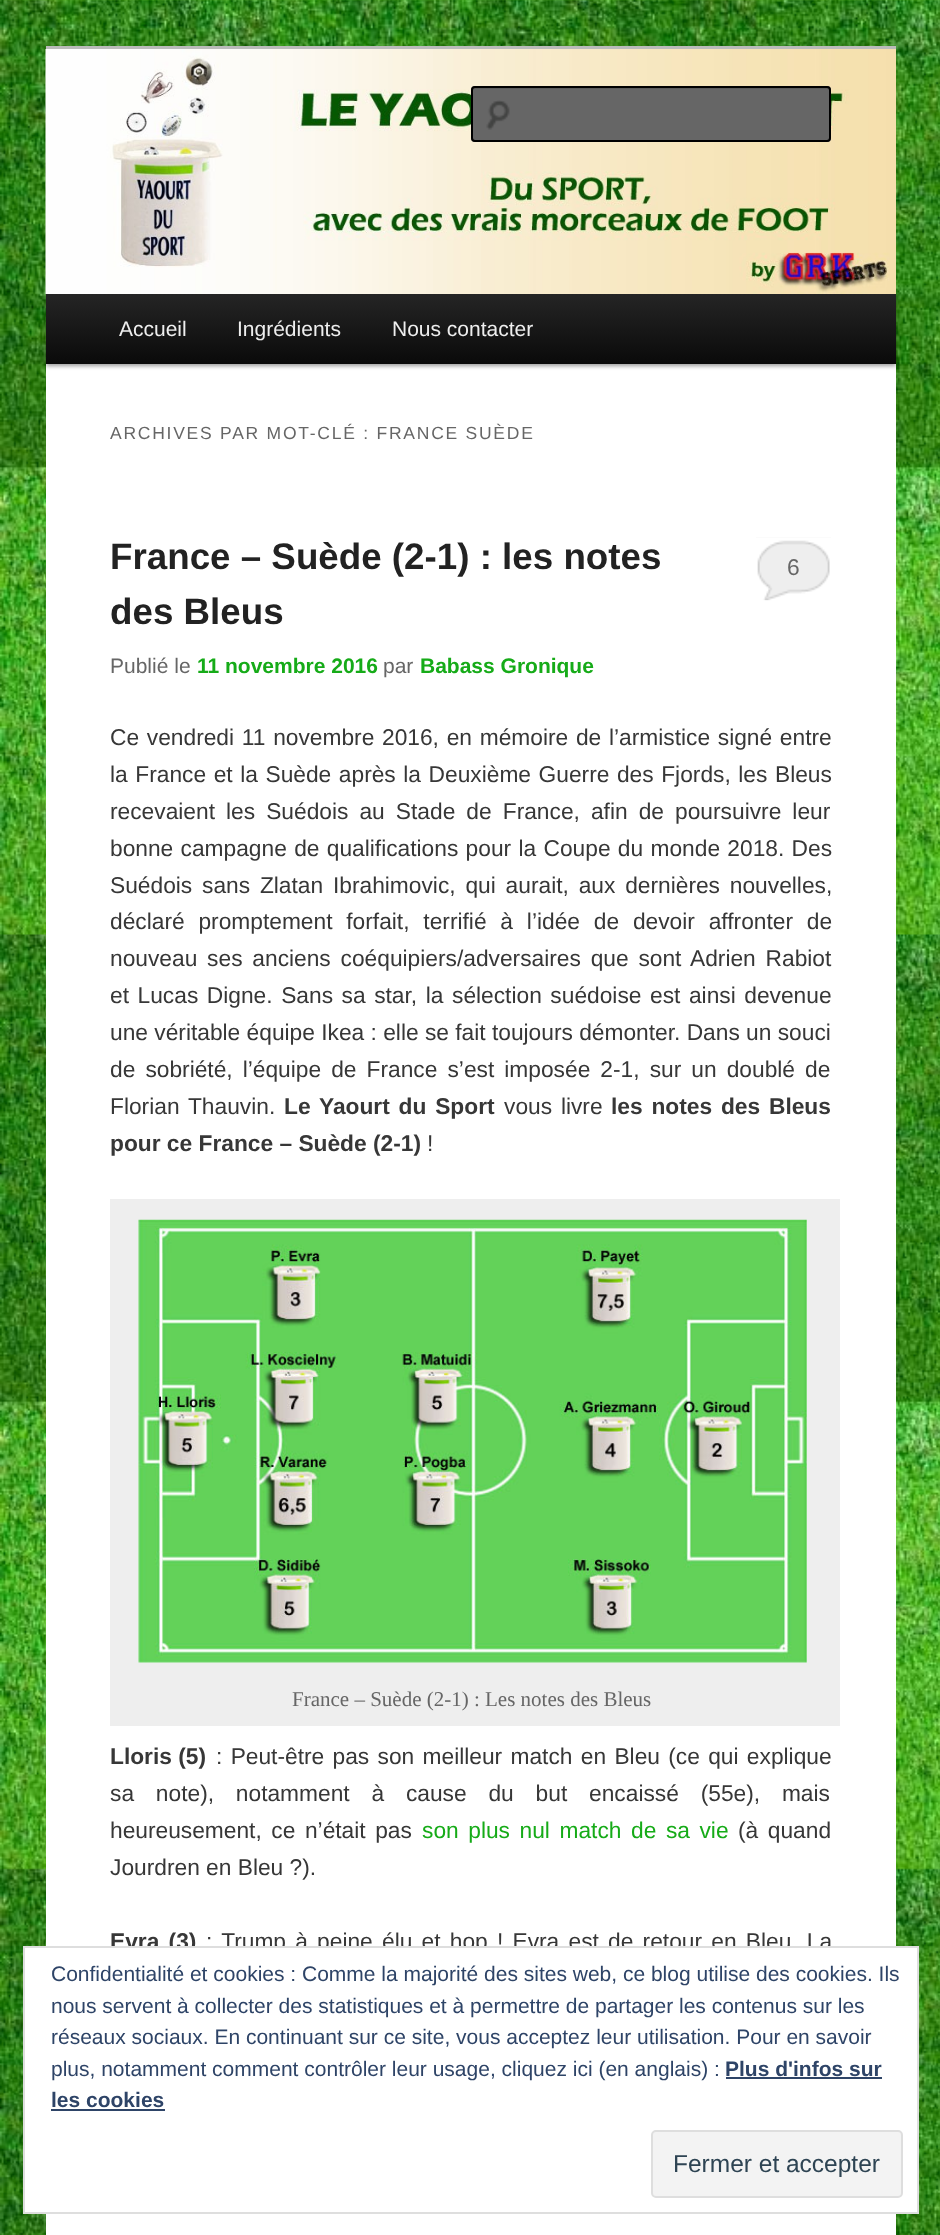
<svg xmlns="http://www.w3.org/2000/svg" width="940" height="2235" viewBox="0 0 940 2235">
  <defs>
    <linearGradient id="g1" gradientUnits="userSpaceOnUse" x1="471" y1="294" x2="471" y2="364"><stop offset="0" stop-color="rgb(37,37,37)"/><stop offset="1" stop-color="rgb(10,10,10)"/></linearGradient>
  </defs>
  <rect width="100%" height="100%" fill="rgb(255,255,255)"/>
  <image x="0" y="0" width="940" height="2235" href="pic1.png"/>
  <rect x="46" y="364" width="850" height="1871" fill="rgb(255,255,255)"/>
  <rect x="46" y="46" width="850" height="3" fill="rgb(187,187,187)"/>
  <rect x="46" y="296" width="850" height="70" fill="rgba(0,0,0,0.4)" filter="blur(2px)"/>
  <image x="45" y="49" width="851" height="245" href="pic2.png"/>
  <rect x="471" y="86" width="360" height="56" rx="4" fill="rgb(102,102,102)"/>
  <image x="486" y="100" width="24" height="30" href="pic3.png"/>
  <path d="M474 89H828C829 89 830 90 830 91C830 90 830 88 828 88H475L473 89Z" fill="rgb(92,92,92)"/>
  <rect x="472" y="87" width="358" height="54" rx="3" fill="none" stroke="rgb(0,0,0)" stroke-width="2"/>
  <rect x="46" y="294" width="850" height="70" fill="url(#g1)"/>
  <g font-family="Liberation Sans" font-size="21" fill="rgb(238,238,238)">
    <text x="119" y="336">Accueil</text>
    <text x="237" y="336">Ingrédients</text>
    <text x="392" y="336">Nous contacter</text>
  </g>
  <text x="110" y="439" font-family="Liberation Sans" font-size="17.5" letter-spacing="1.75" fill="rgb(102,102,102)">ARCHIVES PAR MOT-CLÉ : FRANCE SUÈDE</text>
  <g font-family="Liberation Sans" font-size="36.75" font-weight="bold" fill="rgb(34,34,34)">
    <text>
      <tspan x="110" y="569">France – Suède (2-1) : les notes</tspan>
      <tspan x="110" y="624">des Bleus</tspan>
    </text>
  </g>
  <rect x="756" y="537" width="75" height="63" fill="rgb(238,238,238)"/>
  <image x="756" y="537" width="75" height="64" href="pic4.png"/>
  <text x="787" y="575" font-family="Liberation Sans" font-size="22.75" fill="rgb(102,102,102)">6</text>
  <text x="110" y="673" font-family="Liberation Sans" font-size="21" fill="rgb(102,102,102)">Publié le</text>
  <text x="197" y="673" font-family="Liberation Sans" font-size="21" font-weight="bold" fill="rgb(22,171,24)">11 novembre 2016</text>
  <text x="383" y="673" font-family="Liberation Sans" font-size="21" fill="rgb(102,102,102)">par</text>
  <text x="420" y="673" font-family="Liberation Sans" font-size="21" font-weight="bold" fill="rgb(22,171,24)">Babass Gronique</text>
  <g font-family="Liberation Sans" font-size="22.75" fill="rgb(55,55,55)">
    <text>
      <tspan x="110" y="745" word-spacing="1.4">Ce vendredi 11 novembre 2016, en mémoire de l’armistice signé entre</tspan>
      <tspan x="110" y="782" word-spacing="1.25">la France et la Suède après la Deuxième Guerre des Fjords, les Bleus</tspan>
      <tspan x="110" y="819" word-spacing="4.75">recevaient les Suédois au Stade de France, afin de poursuivre leur</tspan>
      <tspan x="110" y="856" word-spacing="1">bonne campagne de qualifications pour la Coupe du monde 2018. Des</tspan>
      <tspan x="110" y="893" word-spacing="3.5">Suédois sans Zlatan Ibrahimovic, qui aurait, aux dernières nouvelles,</tspan>
      <tspan x="110" y="929" word-spacing="7.5">déclaré promptement forfait, terrifié à l’idée de devoir affronter de</tspan>
      <tspan x="110" y="966" word-spacing="3.5">nouveau ses anciens coéquipiers/adversaires que sont Adrien Rabiot</tspan>
      <tspan x="110" y="1003" word-spacing="2.25">et Lucas Digne. Sans sa star, la sélection suédoise est ainsi devenue</tspan>
      <tspan x="110" y="1040">une véritable équipe Ikea : elle se fait toujours démonter. Dans un souci</tspan>
      <tspan x="110" y="1077" word-spacing="3.75">de sobriété, l’équipe de France s’est imposée 2-1, sur un doublé de</tspan>
      <tspan x="110" y="1114" word-spacing="2.5">Florian Thauvin.</tspan>
    </text>
  </g>
  <text x="284" y="1114" word-spacing="2.5" font-family="Liberation Sans" font-size="22.75" font-weight="bold" fill="rgb(55,55,55)">Le Yaourt du Sport</text>
  <text x="504" y="1114" word-spacing="2.5" font-family="Liberation Sans" font-size="22.75" fill="rgb(55,55,55)">vous livre</text>
  <g font-family="Liberation Sans" font-size="22.75" font-weight="bold" fill="rgb(55,55,55)">
    <text x="611" y="1114" word-spacing="2.5">les notes des Bleus</text>
    <text x="110" y="1151">pour ce France – Suède (2-1)</text>
  </g>
  <text x="427" y="1151" font-family="Liberation Sans" font-size="22.75" fill="rgb(55,55,55)">!</text>
  <rect x="110" y="1199" width="730" height="527" fill="rgb(238,238,238)"/>
  <image x="138" y="1219" width="669" height="444" href="pic5.png"/>
  <text x="292" y="1706" font-family="Liberation Serif" font-size="21" fill="rgb(102,102,102)">France – Suède (2-1) : Les notes des Bleus</text>
  <text x="110" y="1764" font-family="Liberation Sans" font-size="22.75" font-weight="bold" fill="rgb(55,55,55)">Lloris (5)</text>
  <g font-family="Liberation Sans" font-size="22.75" fill="rgb(55,55,55)">
    <text x="216" y="1764" word-spacing="2">: Peut-être pas son meilleur match en Bleu (ce qui explique</text>
    <text>
      <tspan x="110" y="1801" word-spacing="15.5">sa note), notamment à cause du but encaissé (55e), mais</tspan>
      <tspan x="110" y="1838" word-spacing="3.25">heureusement, ce n’était pas</tspan>
    </text>
  </g>
  <text x="422" y="1838" word-spacing="3.25" font-family="Liberation Sans" font-size="22.75" fill="rgb(22,171,24)">son plus nul match de sa vie</text>
  <g font-family="Liberation Sans" font-size="22.75" fill="rgb(55,55,55)">
    <text x="738" y="1838" word-spacing="3.25">(à quand</text>
    <text x="110" y="1875">Jourdren en Bleu ?).</text>
  </g>
  <text x="110" y="1949" word-spacing="2.9" font-family="Liberation Sans" font-size="22.75" font-weight="bold" fill="rgb(55,55,55)">Evra (3)</text>
  <text x="206" y="1949" word-spacing="2.9" font-family="Liberation Sans" font-size="22.75" fill="rgb(55,55,55)">: Trump à peine élu et hop ! Evra est de retour en Bleu. La</text>
  <rect x="24" y="1947" width="894" height="266" fill="rgb(255,255,255)" stroke="rgb(222,222,222)" stroke-width="2"/>
  <g font-family="Liberation Sans" font-size="21" fill="rgb(46,68,103)">
    <text>
      <tspan x="51" y="1981">Confidentialité et cookies : Comme la majorité des sites web, ce blog utilise des cookies. Ils</tspan>
      <tspan x="51" y="2013">nous servent à collecter des statistiques et à permettre de partager les contenus sur les</tspan>
      <tspan x="51" y="2044">réseaux sociaux. En continuant sur ce site, vous acceptez leur utilisation. Pour en savoir</tspan>
      <tspan x="51" y="2076">plus, notamment comment contrôler leur usage, cliquez ici (en anglais) :</tspan>
    </text>
  </g>
  <text x="725" y="2076" font-family="Liberation Sans" font-size="21" font-weight="bold" fill="rgb(46,68,103)">Plus d'infos sur</text>
  <rect x="726" y="2077" width="156" height="2" fill="rgb(46,68,103)"/>
  <text x="51" y="2107" font-family="Liberation Sans" font-size="21" font-weight="bold" fill="rgb(46,68,103)">les cookies</text>
  <rect x="51" y="2109" width="114" height="2" fill="rgb(46,68,103)"/>
  <rect x="652" y="2131" width="250" height="66" rx="4" fill="rgb(243,243,243)" stroke="rgb(222,222,222)" stroke-width="2"/>
  <text x="673" y="2172" font-family="Liberation Sans" font-size="24.5" fill="rgb(46,68,83)">Fermer et accepter</text>
</svg>
